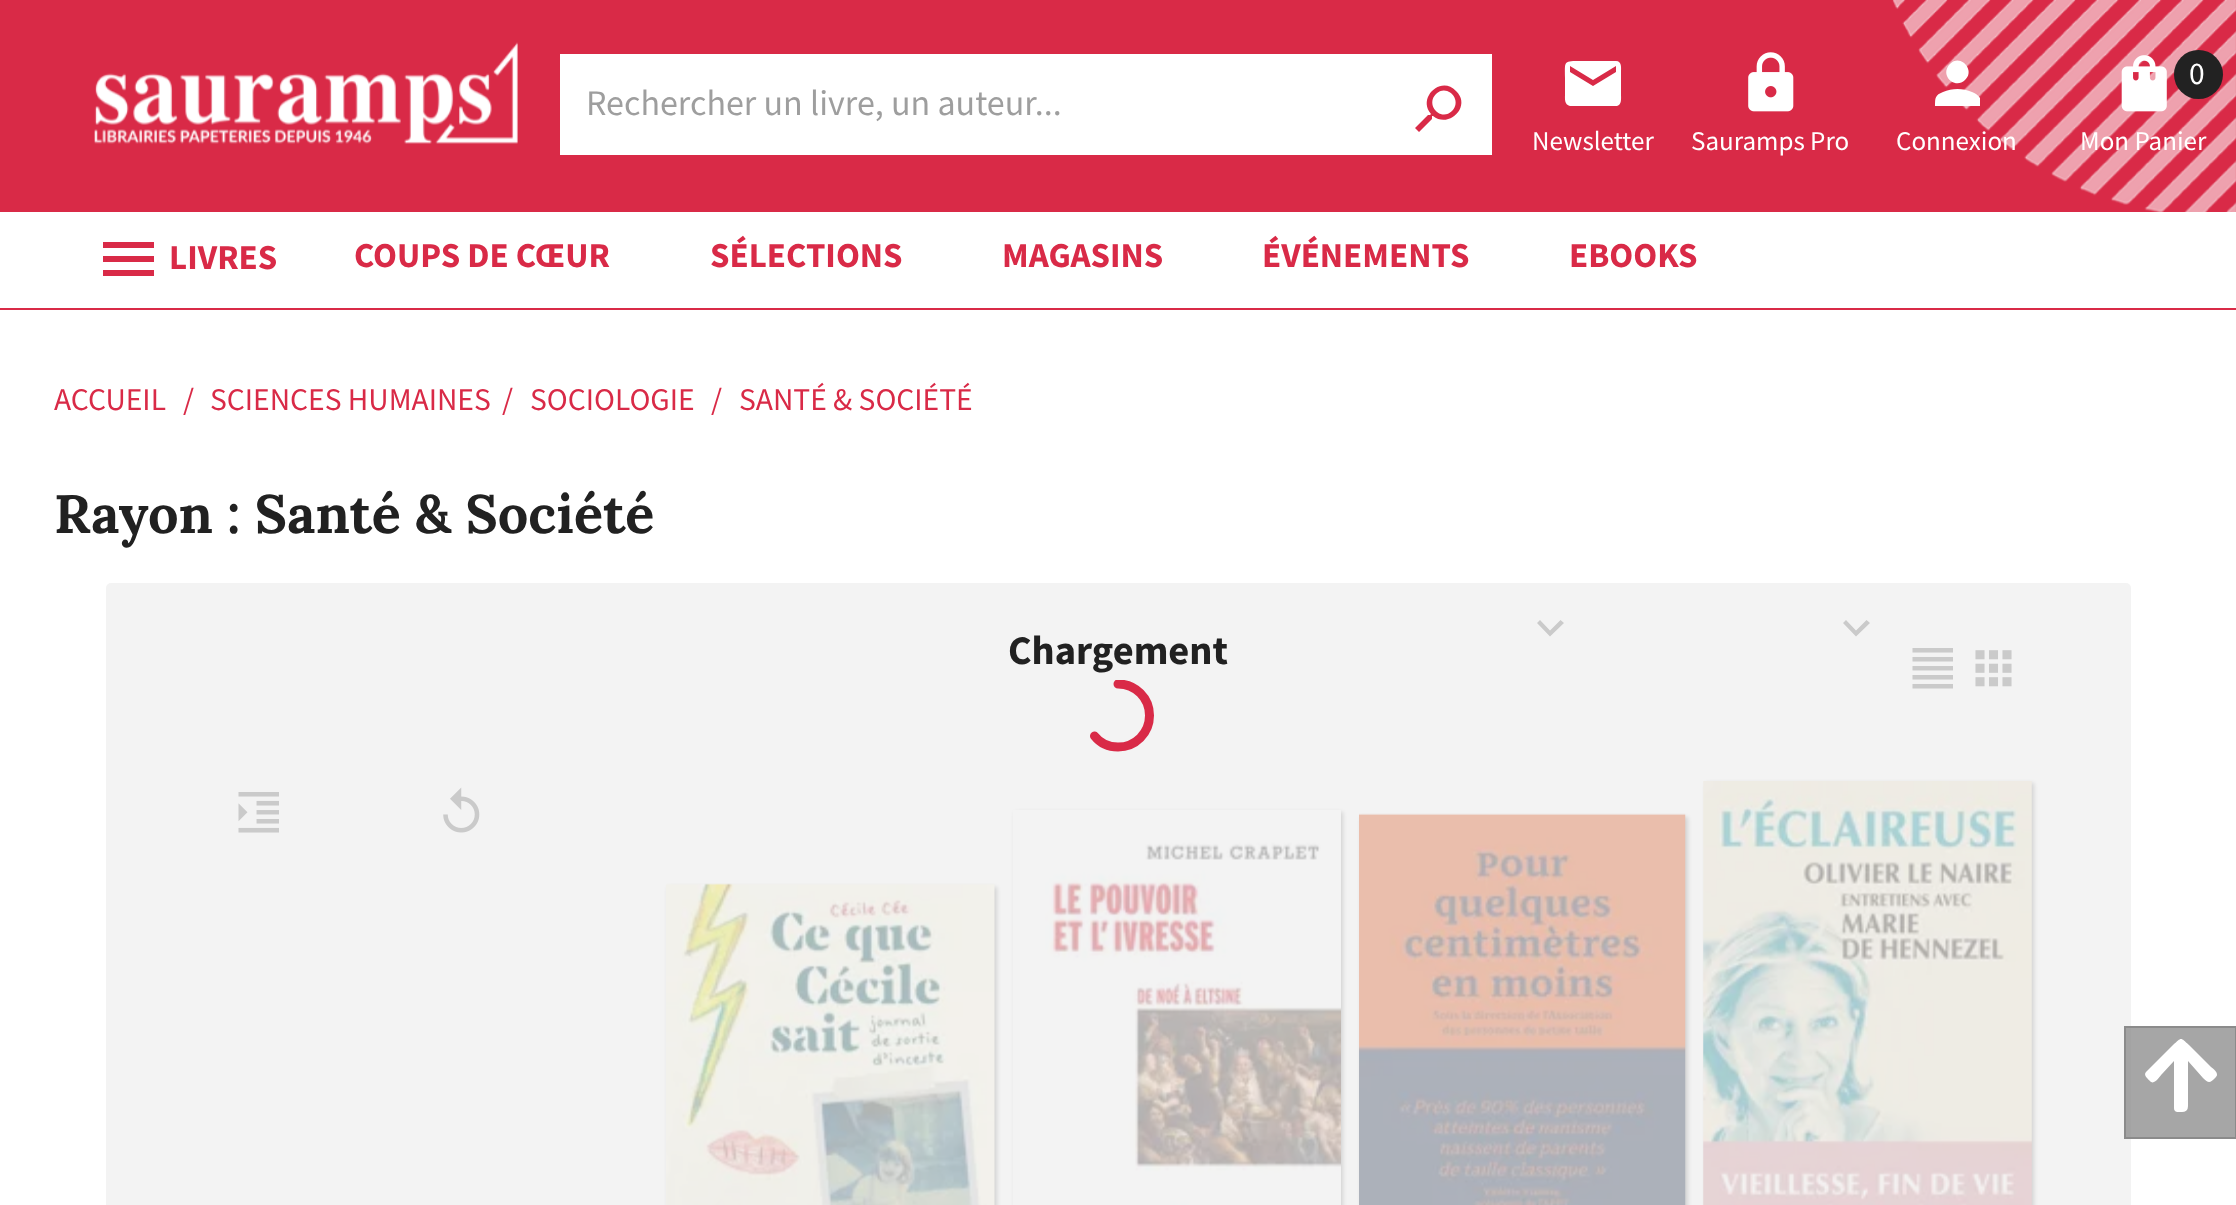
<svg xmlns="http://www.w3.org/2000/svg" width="2236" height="1205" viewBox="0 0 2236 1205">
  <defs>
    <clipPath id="clip1"><path d="M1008 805H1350V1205H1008ZM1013 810H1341V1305H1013Z" clip-rule="evenodd"/></clipPath>
    <clipPath id="clip2"><rect x="1082" y="680" width="72" height="72"/></clipPath>
  </defs>
  <rect width="100%" height="100%" fill="rgb(255,255,255)"/>
  <rect x="0" y="0" width="2236" height="212" fill="rgb(217,42,71)"/>
  <text x="2080" y="150" font-family="Source Sans Pro" font-size="27" fill="rgb(255,255,255)">Mon Panier</text>
  <image x="1892" y="0" width="344" height="212" href="pic1.png"/>
  <image x="94" y="42" width="424" height="102" href="pic2.png"/>
  <rect x="560" y="54" width="932" height="101" fill="rgb(255,255,255)"/>
  <text x="586" y="115" font-family="Source Sans Pro" font-size="36" fill="rgb(158,158,158)">Rechercher un livre, un auteur...</text>
  <path d="M1436 94C1425 105 1441 122 1452 111C1463 100 1447 83 1436 94ZM1432 119L1419 132L1415 128L1428 115H1430L1431 114C1417 98 1441 75 1456 91C1472 106 1449 129 1433 116H1432Z" fill="rgb(217,42,71)"/>
  <image x="2121" y="55" width="46" height="57" href="pic3.png"/>
  <circle cx="2198.5" cy="74.5" r="24.5" fill="rgb(34,34,34)"/>
  <text x="2189" y="84" font-family="Source Sans Pro" font-size="31.5" fill="rgb(255,255,255)">0</text>
  <path d="M1616 72V66L1593 80L1570 66V72L1593 86ZM1616 61C1622 61 1621 68 1621 72V94C1621 98 1622 105 1617 106H1570C1564 105 1565 98 1565 94V78C1565 62 1563 61 1578 61Z" fill="rgb(255,255,255)"/>
  <text x="1532" y="150" font-family="Source Sans Pro" font-size="27" fill="rgb(255,255,255)">Newsletter</text>
  <image x="1748" y="52" width="46" height="60" href="pic4.png"/>
  <text x="1691" y="150" font-family="Source Sans Pro" font-size="27" fill="rgb(255,255,255)">Sauramps Pro</text>
  <path d="M1943 92C1952 88 1963 88 1972 92C1975 93 1978 95 1980 98V106H1935C1935 98 1935 95 1943 92ZM1965 80C1955 90 1939 75 1950 64C1960 53 1976 70 1965 80Z" fill="rgb(255,255,255)"/>
  <text x="1896" y="150" font-family="Source Sans Pro" font-size="27" fill="rgb(255,255,255)">Connexion</text>
  <rect x="0" y="308" width="2236" height="2" fill="rgb(217,42,71)"/>
  <path d="M103 242H154V248H103ZM103 262V256H154V262ZM103 276V270H154V276Z" fill="rgb(217,42,71)"/>
  <g font-family="Source Sans Pro" font-size="35" font-weight="bold" fill="rgb(217,42,71)">
    <text x="169" y="269">LIVRES</text>
    <text x="354" y="267">COUPS DE CŒUR</text>
    <text x="710" y="267">SÉLECTIONS</text>
    <text x="1002" y="267">MAGASINS</text>
    <text x="1262" y="267">ÉVÉNEMENTS</text>
    <text x="1569" y="267">EBOOKS</text>
  </g>
  <g font-family="Source Sans Pro" font-size="31.5" fill="rgb(217,42,71)">
    <text x="54" y="410">ACCUEIL</text>
    <text x="183" y="410">/</text>
    <text x="210" y="410">SCIENCES HUMAINES</text>
    <text x="502" y="410">/</text>
    <text x="530" y="410">SOCIOLOGIE</text>
    <text x="711" y="410">/</text>
    <text x="739" y="410">SANTÉ &amp; SOCIÉTÉ</text>
  </g>
  <text x="54" y="533" font-family="Lora" font-size="54" font-weight="bold" fill="rgb(33,33,33)">Rayon : Santé &amp; Société</text>
  <path d="M1560.5 620L1564 623L1550 636.5L1537 623L1540 620L1550 630.5Z" fill="rgb(117,117,117)"/>
  <path d="M1866.5 620L1870 623L1856 636.5L1843 623L1846 620L1856 630.5Z" fill="rgb(117,117,117)"/>
  <image x="1912" y="648" width="41" height="41" href="pic5.png"/>
  <image x="1975" y="650" width="37" height="37" href="pic6.png"/>
  <image x="238" y="792" width="41" height="41" href="pic7.png"/>
  <image x="443" y="787" width="37" height="46" href="pic8.png"/>
  <rect x="668" y="887" width="329" height="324" fill="rgb(150,150,150)" filter="blur(2px)"/>
  <image x="666" y="883" width="329" height="322" href="pic9.png"/>
  <g clip-path="url(#clip1)">
    <rect x="1015" y="812" width="328" height="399" fill="rgb(150,150,150)" filter="blur(2px)"/>
  </g>
  <image x="1045" y="842" width="296" height="363" href="pic10.png"/>
  <rect x="1361" y="817" width="327" height="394" fill="rgb(150,150,150)" filter="blur(2px)"/>
  <image x="1359" y="813" width="327" height="392" href="pic11.png"/>
  <rect x="1706" y="783" width="328" height="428" fill="rgb(150,150,150)" filter="blur(2px)"/>
  <image x="1703" y="781" width="329" height="424" href="pic12.png"/>
  <rect x="106" y="583" width="2025" height="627" rx="5" fill="rgba(238,238,238,0.7)"/>
  <text x="1008" y="664" font-family="Source Sans Pro" font-size="40.5" font-weight="bold" fill="rgb(33,33,33)">Chargement</text>
  <g clip-path="url(#clip2)">
    <path d="M1118 684C1135.5 684 1149.5 698 1149.5 715.5C1149.5 733 1135.5 747 1118 747C1108.5 747 1100 743 1094.5 736" fill="none" stroke="rgb(217,42,71)" stroke-width="9" stroke-linecap="round"/>
  </g>
  <rect x="2124" y="1026" width="112" height="113" fill="rgba(128,128,128,0.7)"/>
  <rect x="2125" y="1027" width="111" height="111" fill="none" stroke="rgba(128,128,128,0.7)" stroke-width="2"/>
  <path d="M2150 1081C2148 1079 2143 1075 2146 1072L2173 1045C2182 1037 2180 1037 2189 1045L2210 1066C2212 1068 2220 1073 2216 1077C2210 1083 2209 1084 2203 1078L2188 1061V1100C2188 1107 2189 1112 2182 1112C2179 1112 2174 1113 2174 1108V1061L2162 1074C2160 1076 2154 1086 2150 1081Z" fill="rgb(255,255,255)"/>
</svg>
